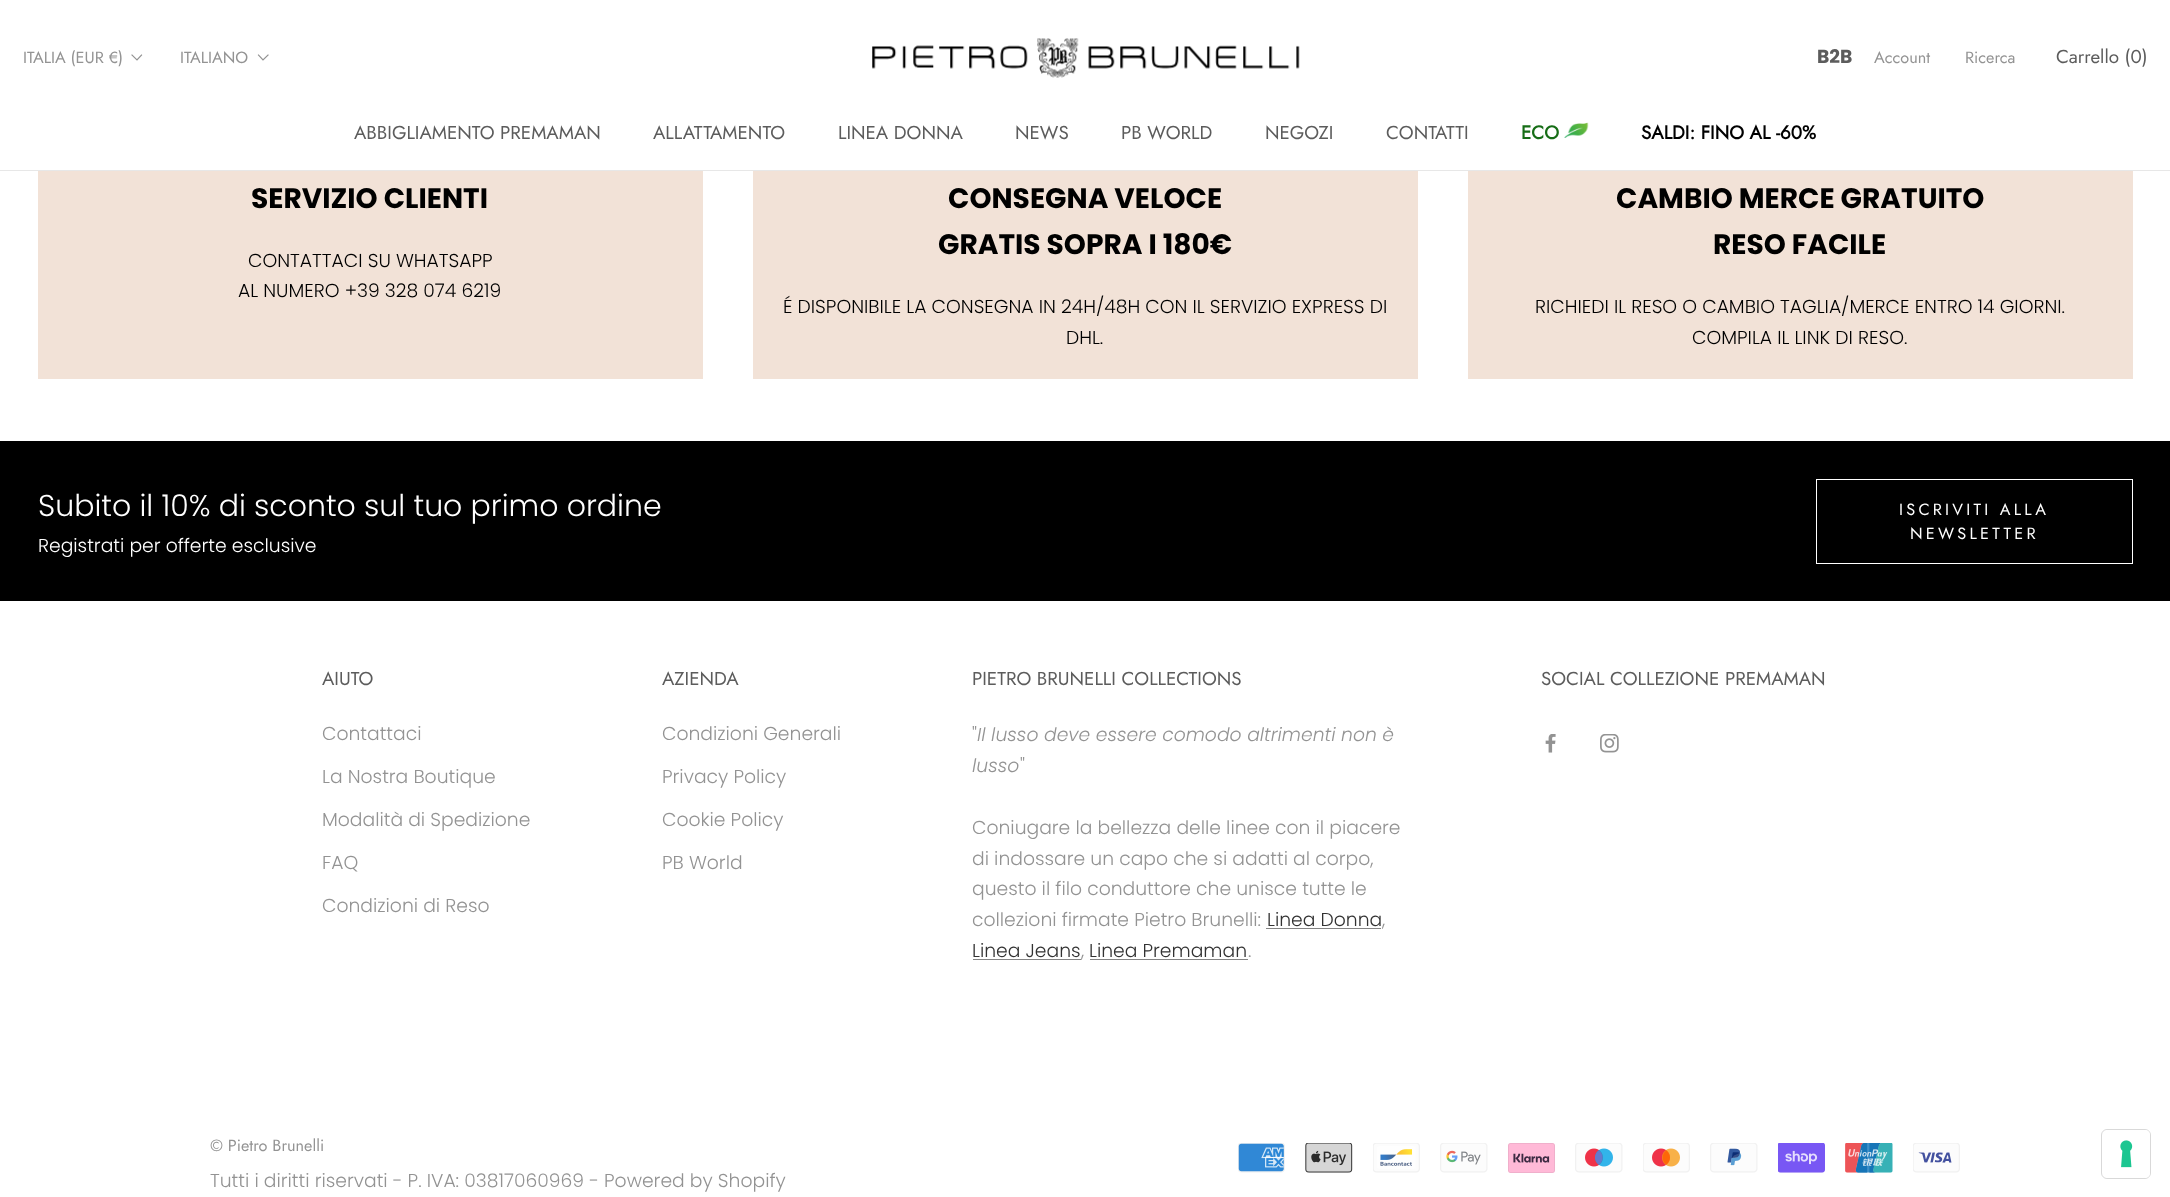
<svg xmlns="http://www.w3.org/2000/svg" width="2170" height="1197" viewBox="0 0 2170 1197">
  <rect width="100%" height="100%" fill="rgb(255,255,255)"/>
  <rect x="0" y="170" width="2170" height="1" fill="rgb(231,231,231)"/>
  <image x="872" y="38" width="428" height="40" href="pic1.png"/>
  <text x="1817" y="63" font-family="Poppins" font-size="18.75" font-weight="bold" fill="rgb(92,92,92)">B2B</text>
  <g font-family="Jost" font-size="16.25" fill="rgb(147,147,147)">
    <text x="1874" y="63">Account</text>
    <text x="1965" y="63">Ricerca</text>
  </g>
  <text x="2056" y="63" font-family="Jost" font-size="18.75" fill="rgb(92,92,92)">Carrello (0)</text>
  <text x="23" y="63" font-family="Jost" font-size="16.25" fill="rgb(147,147,147)">ITALIA (EUR €)</text>
  <path d="M141.5 55L137 60L132 55" fill="none" stroke="rgb(147,147,147)" stroke-width="1.2" stroke-linecap="square"/>
  <text x="180" y="63" font-family="Jost" font-size="16.25" fill="rgb(147,147,147)">ITALIANO</text>
  <path d="M268 55L263 60L258.5 55" fill="none" stroke="rgb(147,147,147)" stroke-width="1.2" stroke-linecap="square"/>
  <g font-family="Jost" font-size="18.75" fill="rgb(92,92,92)">
    <text x="354" y="139">ABBIGLIAMENTO PREMAMAN</text>
    <text x="653" y="139">ALLATTAMENTO</text>
    <text x="838" y="139">LINEA DONNA</text>
    <text x="1015" y="139">NEWS</text>
    <text x="1121" y="139">PB WORLD</text>
    <text x="1265" y="139">NEGOZI</text>
    <text x="1386" y="139">CONTATTI</text>
  </g>
  <text x="1521" y="139" font-family="Jost" font-size="18.75" font-weight="bold" fill="rgb(22,109,22)">ECO</text>
  <image x="1564" y="122" width="25" height="16" href="pic2.png"/>
  <text x="1641" y="139" font-family="Jost" font-size="18.75" font-weight="bold" fill="rgb(0,0,0)">SALDI: FINO AL -60%</text>
  <rect x="38" y="171" width="665" height="208" fill="rgb(242,226,215)"/>
  <text x="251" y="208" font-family="Poppins" font-size="28.1" font-weight="bold" fill="rgb(0,0,0)">SERVIZIO CLIENTI</text>
  <g font-family="Poppins" font-size="18.75" font-weight="300" fill="rgb(0,0,0)">
    <text x="248" y="267">CONTATTACI SU WHATSAPP</text>
    <text x="238" y="297">AL NUMERO +39 328 074 6219</text>
  </g>
  <rect x="753" y="171" width="665" height="208" fill="rgb(242,226,215)"/>
  <g font-family="Poppins" font-size="28.1" font-weight="bold" fill="rgb(0,0,0)">
    <text x="948" y="208">CONSEGNA VELOCE</text>
    <text x="938" y="254">GRATIS SOPRA I 180€</text>
  </g>
  <g font-family="Poppins" font-size="18.75" font-weight="300" fill="rgb(0,0,0)">
    <text x="783" y="313">É DISPONIBILE LA CONSEGNA IN 24H/48H CON IL SERVIZIO EXPRESS DI</text>
    <text x="1066" y="344">DHL.</text>
  </g>
  <rect x="1468" y="171" width="665" height="208" fill="rgb(242,226,215)"/>
  <g font-family="Poppins" font-size="28.1" font-weight="bold" fill="rgb(0,0,0)">
    <text x="1616" y="208">CAMBIO MERCE GRATUITO</text>
    <text x="1713" y="254">RESO FACILE</text>
  </g>
  <g font-family="Poppins" font-size="18.75" font-weight="300" fill="rgb(0,0,0)">
    <text x="1535" y="313">RICHIEDI IL RESO O CAMBIO TAGLIA/MERCE ENTRO 14 GIORNI.</text>
    <text x="1692" y="344">COMPILA IL LINK DI RESO.</text>
  </g>
  <rect x="0" y="441" width="2170" height="160" fill="rgb(0,0,0)"/>
  <text x="38" y="516" font-family="Poppins" font-size="30" font-weight="300" fill="rgb(255,255,255)">Subito il 10% di sconto sul tuo primo ordine</text>
  <text x="38" y="552" font-family="Poppins" font-size="18.75" font-weight="300" fill="rgb(255,255,255)">Registrati per offerte esclusive</text>
  <rect x="1816.5" y="479.5" width="316" height="84" fill="none" stroke="rgb(255,255,255)"/>
  <g font-family="Jost" font-size="16.25" letter-spacing="3.25" fill="rgb(255,255,255)">
    <text x="1899" y="515">ISCRIVITI ALLA</text>
    <text x="1910" y="539">NEWSLETTER</text>
  </g>
  <text x="322" y="685" font-family="Jost" font-size="18.75" fill="rgb(92,92,92)">AIUTO</text>
  <g font-family="Poppins" font-size="18.75" font-weight="300" fill="rgb(147,147,147)">
    <text x="322" y="740">Contattaci</text>
    <text x="322" y="783">La Nostra Boutique</text>
    <text x="322" y="826">Modalità di Spedizione</text>
    <text x="322" y="869">FAQ</text>
    <text x="322" y="912">Condizioni di Reso</text>
  </g>
  <text x="662" y="685" font-family="Jost" font-size="18.75" fill="rgb(92,92,92)">AZIENDA</text>
  <g font-family="Poppins" font-size="18.75" font-weight="300" fill="rgb(147,147,147)">
    <text x="662" y="740">Condizioni Generali</text>
    <text x="662" y="783">Privacy Policy</text>
    <text x="662" y="826">Cookie Policy</text>
    <text x="662" y="869">PB World</text>
  </g>
  <text x="972" y="685" font-family="Jost" font-size="18.75" fill="rgb(92,92,92)">PIETRO BRUNELLI COLLECTIONS</text>
  <text x="972" y="741" font-family="Poppins" font-size="18.75" font-weight="300" fill="rgb(147,147,147)">"</text>
  <g font-family="Poppins" font-size="18.75" font-weight="300" font-style="italic" fill="rgb(147,147,147)">
    <text x="977" y="741">Il lusso deve essere comodo altrimenti non è</text>
    <text x="972" y="772">lusso</text>
  </g>
  <g font-family="Poppins" font-size="18.75" font-weight="300" fill="rgb(147,147,147)">
    <text x="1020" y="772">"</text>
    <text>
      <tspan x="972" y="834">Coniugare la bellezza delle linee con il piacere</tspan>
      <tspan x="972" y="865">di indossare un capo che si adatti al corpo,</tspan>
      <tspan x="972" y="895">questo il filo conduttore che unisce tutte le</tspan>
      <tspan x="972" y="926">collezioni firmate Pietro Brunelli:</tspan>
    </text>
  </g>
  <text x="1267" y="926" font-family="Poppins" font-size="18.75" font-weight="300" fill="rgb(50,50,50)">Linea Donna</text>
  <rect x="1266" y="928" width="115" height="1" fill="rgb(132,132,132)"/>
  <text x="1382" y="926" font-family="Poppins" font-size="18.75" font-weight="300" fill="rgb(147,147,147)">,</text>
  <text x="972" y="957" font-family="Poppins" font-size="18.75" font-weight="300" fill="rgb(50,50,50)">Linea Jeans</text>
  <rect x="973" y="959" width="108" height="1" fill="rgb(132,132,132)"/>
  <text x="1081" y="957" font-family="Poppins" font-size="18.75" font-weight="300" fill="rgb(147,147,147)">,</text>
  <text x="1089" y="957" font-family="Poppins" font-size="18.75" font-weight="300" fill="rgb(50,50,50)">Linea Premaman</text>
  <rect x="1090" y="959" width="158" height="1" fill="rgb(132,132,132)"/>
  <text x="1248" y="957" font-family="Poppins" font-size="18.75" font-weight="300" fill="rgb(147,147,147)">.</text>
  <text x="1541" y="685" font-family="Jost" font-size="18.75" fill="rgb(92,92,92)">SOCIAL COLLEZIONE PREMAMAN</text>
  <image x="1545" y="734" width="11" height="19" href="pic3.png"/>
  <image x="1600" y="734" width="19" height="19" href="pic4.png"/>
  <text x="210" y="1151" font-family="Jost" font-size="16.25" fill="rgb(147,147,147)">© Pietro Brunelli</text>
  <text x="210" y="1187" font-family="Poppins" font-size="18.75" font-weight="300" fill="rgb(147,147,147)">Tutti i diritti riservati - P. IVA: 03817060969 - Powered by Shopify</text>
  <image x="1238" y="1143" width="47" height="30" href="pic5.png"/>
  <image x="1305" y="1143" width="48" height="30" href="pic6.png"/>
  <image x="1373" y="1143" width="47" height="30" href="pic7.png"/>
  <image x="1440" y="1143" width="48" height="30" href="pic8.png"/>
  <image x="1508" y="1143" width="47" height="30" href="pic9.png"/>
  <image x="1575" y="1143" width="48" height="30" href="pic10.png"/>
  <image x="1643" y="1143" width="47" height="30" href="pic11.png"/>
  <image x="1710" y="1143" width="48" height="30" href="pic12.png"/>
  <image x="1778" y="1143" width="47" height="30" href="pic13.png"/>
  <image x="1845" y="1143" width="48" height="30" href="pic14.png"/>
  <image x="1913" y="1143" width="47" height="30" href="pic15.png"/>
  <rect x="2101.5" y="1129.5" width="49" height="49" rx="5.5" fill="none" stroke="rgb(217,217,217)"/>
  <rect x="2103" y="1130" width="47" height="48" rx="5" fill="rgb(255,255,255)"/>
  <image x="2120" y="1140" width="13" height="28" href="pic16.png"/>
</svg>
